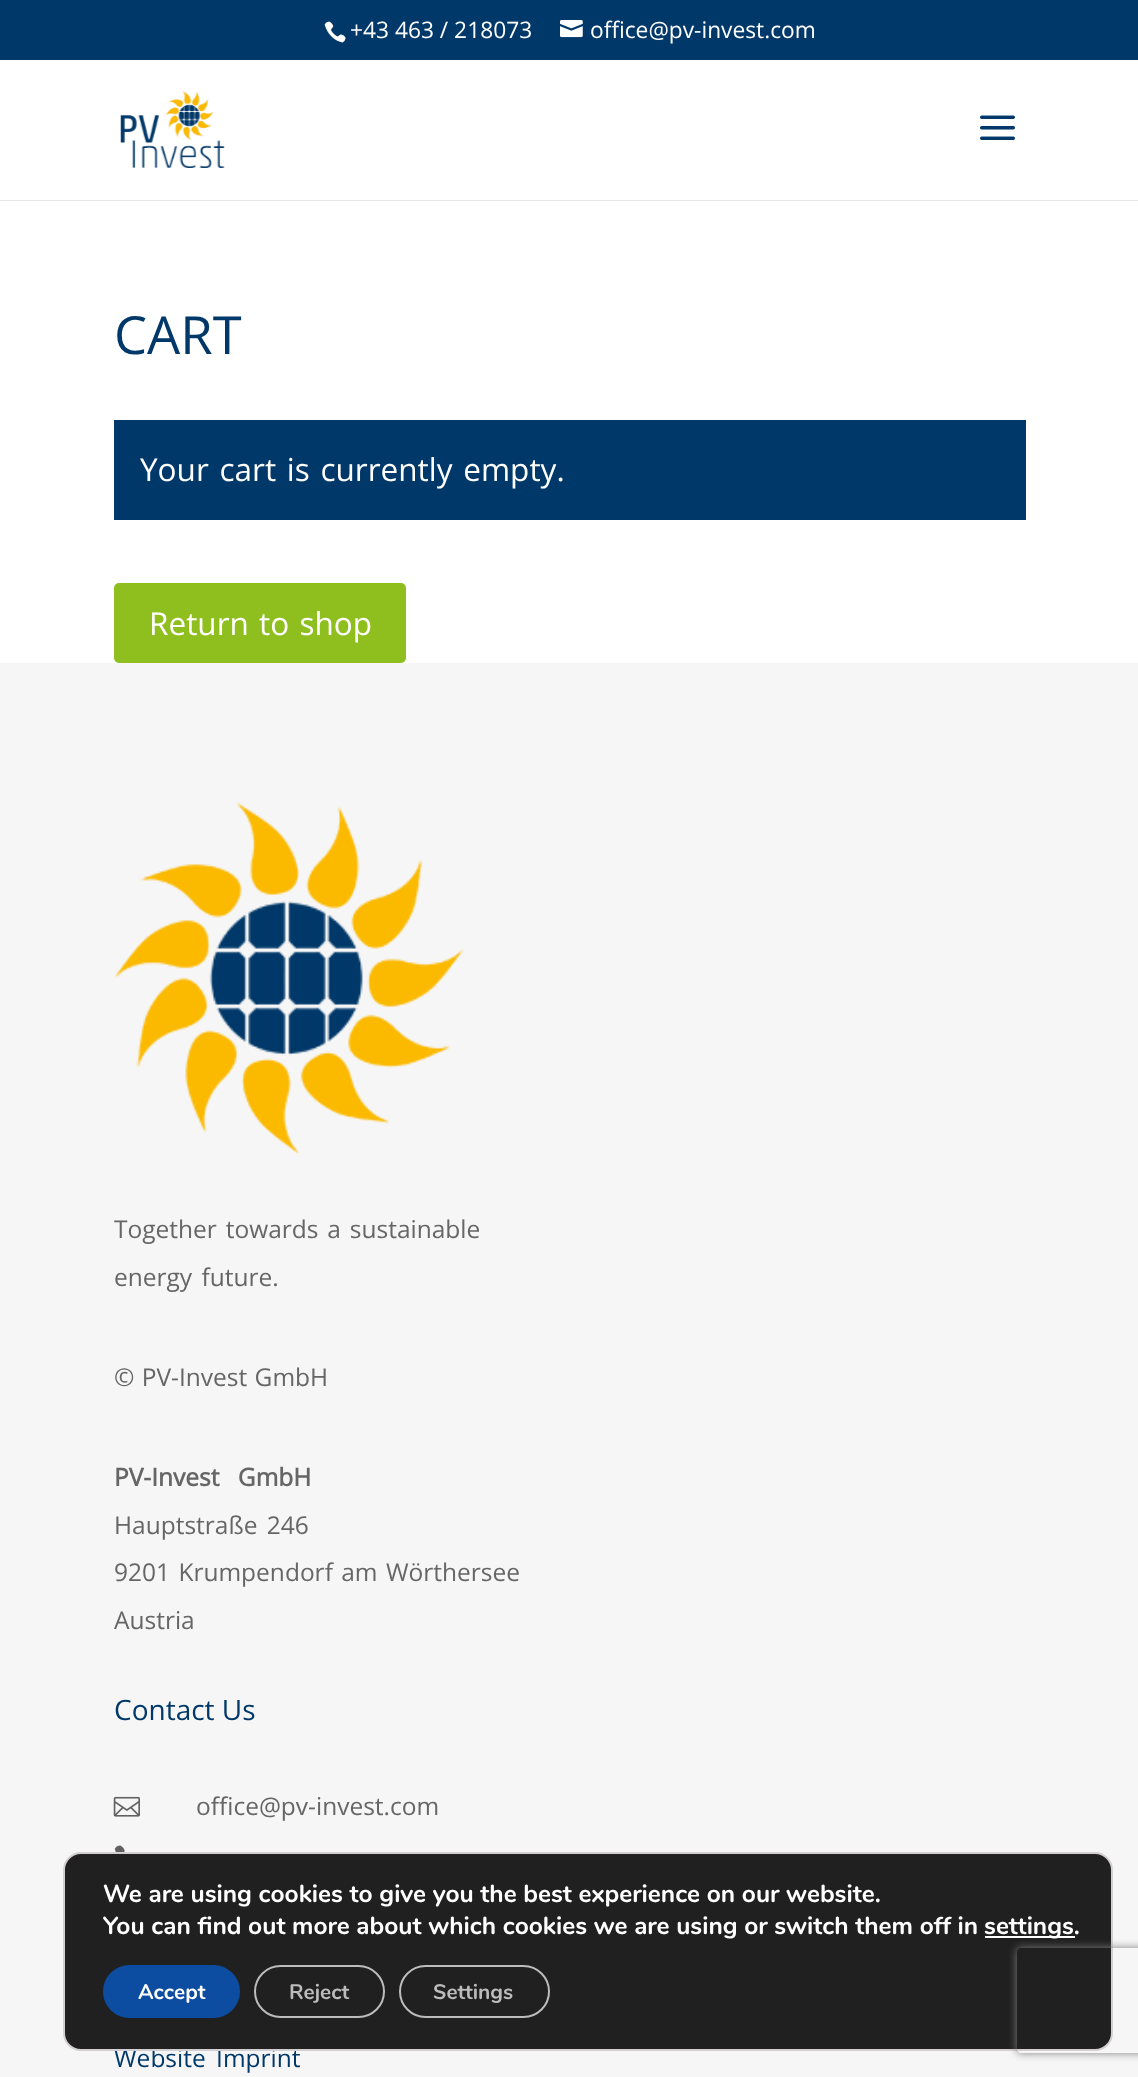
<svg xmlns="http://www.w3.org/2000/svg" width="1138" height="2077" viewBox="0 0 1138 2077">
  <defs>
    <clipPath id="clip1"><path d="M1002 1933H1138V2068H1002ZM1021 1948H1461C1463 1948 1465 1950 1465 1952V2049C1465 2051 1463 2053 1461 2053H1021C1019 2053 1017 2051 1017 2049V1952C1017 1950 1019 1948 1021 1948Z" clip-rule="evenodd"/></clipPath>
  </defs>
  <rect width="100%" height="100%" fill="rgb(255,255,255)"/>
  <rect x="0" y="0" width="1138" height="60" fill="rgb(0,56,105)"/>
  <image x="324" y="21" width="22" height="22" href="pic1.png"/>
  <text x="350" y="38" font-family="Open Sans" font-size="22.75" fill="rgb(255,255,255)">+43 463 / 218073</text>
  <image x="560" y="20" width="23" height="18" href="pic2.png"/>
  <text x="590" y="38" font-family="Open Sans" font-size="22.75" fill="rgb(255,255,255)">office@pv-invest.com</text>
  <rect x="0" y="200" width="1138" height="1" fill="rgb(230,230,230)"/>
  <image x="120" y="91" width="105" height="77" href="pic3.png"/>
  <image x="980" y="115" width="35" height="25" href="pic4.png"/>
  <text x="114" y="354" font-family="Open Sans" font-size="52.5" fill="rgb(0,56,105)">CART</text>
  <rect x="114" y="420" width="912" height="100" fill="rgb(0,56,105)"/>
  <text x="140" y="481" word-spacing="2.5" font-family="Open Sans" font-size="31.5" fill="rgb(255,255,255)">Your cart is currently empty.</text>
  <rect x="116" y="585" width="288" height="76" rx="3" fill="rgb(143,191,31)" stroke="rgb(143,191,31)" stroke-width="4"/>
  <text x="149" y="635" word-spacing="2" font-family="Open Sans" font-size="31.5" fill="rgb(255,255,255)">Return to shop</text>
  <rect x="0" y="663" width="1138" height="1414" fill="rgb(246,246,246)"/>
  <image x="114" y="803" width="350" height="351" href="pic5.png"/>
  <g font-family="Open Sans" font-size="24.5" fill="rgb(102,102,102)">
    <text>
      <tspan x="114" y="1238" word-spacing="2.5">Together towards a sustainable</tspan>
      <tspan x="114" y="1286" word-spacing="3">energy future.</tspan>
    </text>
    <text x="114" y="1386" word-spacing="1">© PV-Invest GmbH</text>
  </g>
  <text x="114" y="1486" word-spacing="12" font-family="Open Sans" font-size="24.5" font-weight="bold" fill="rgb(102,102,102)">PV-Invest GmbH</text>
  <g font-family="Open Sans" font-size="24.5" fill="rgb(102,102,102)">
    <text>
      <tspan x="114" y="1534" word-spacing="3">Hauptstraße 246</tspan>
      <tspan x="114" y="1581" word-spacing="2">9201 Krumpendorf am Wörthersee</tspan>
      <tspan x="114" y="1629">Austria</tspan>
    </text>
  </g>
  <text x="114" y="1720" font-family="Open Sans" font-size="28" fill="rgb(0,56,105)">Contact Us</text>
  <image x="113" y="1796" width="27" height="21" href="pic6.png"/>
  <text x="196" y="1815" font-family="Open Sans" font-size="24.5" fill="rgb(102,102,102)">office@pv-invest.com</text>
  <image x="114" y="1845" width="11" height="7" href="pic7.png"/>
  <text x="114" y="2067" word-spacing="4" font-family="Open Sans" font-size="24.5" fill="rgb(0,56,105)">Website Imprint</text>
  <rect x="64" y="1853" width="1048" height="197" rx="17" fill="rgb(32,32,32)" stroke="rgb(211,206,210)" stroke-width="2"/>
  <g font-family="Nunito" font-size="24.5" font-weight="bold" fill="rgb(255,255,255)">
    <text>
      <tspan x="103" y="1902">We are using cookies to give you the best experience on our website.</tspan>
      <tspan x="103" y="1934">You can find out more about which cookies we are using or switch them off in</tspan>
    </text>
  </g>
  <rect x="985" y="1936" width="90" height="2" fill="rgb(255,255,255)"/>
  <text x="984" y="1934" font-family="Nunito" font-size="24.5" font-weight="bold" fill="rgb(255,255,255)">settings.</text>
  <rect x="103" y="1965" width="137" height="53" rx="26.5" fill="rgb(12,77,162)"/>
  <text x="138" y="1999" font-family="Nunito" font-size="21" font-weight="bold" fill="rgb(255,255,255)">Accept</text>
  <rect x="255" y="1966" width="129" height="51" rx="25.5" fill="none" stroke="rgb(188,188,188)" stroke-width="2"/>
  <text x="289" y="1999" font-family="Nunito" font-size="21" font-weight="bold" fill="rgb(188,188,188)">Reject</text>
  <rect x="400" y="1966" width="149" height="51" rx="25.5" fill="none" stroke="rgb(188,188,188)" stroke-width="2"/>
  <text x="433" y="1999" font-family="Nunito" font-size="21" font-weight="bold" fill="rgb(188,188,188)">Settings</text>
  <g clip-path="url(#clip1)">
    <rect x="1017" y="1948" width="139" height="105" rx="4" fill="rgb(128,128,128)" filter="blur(4.5px)"/>
  </g>
</svg>
